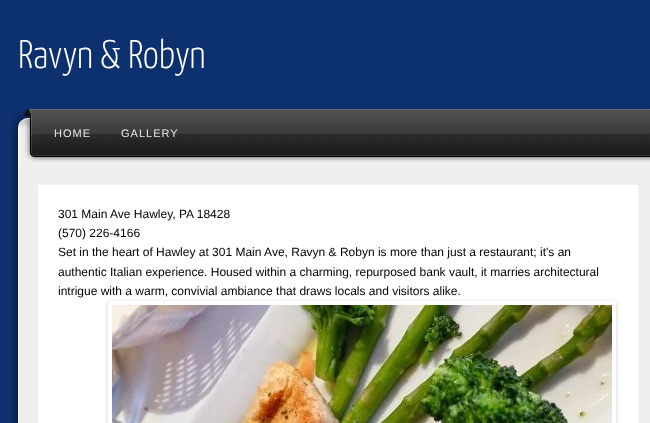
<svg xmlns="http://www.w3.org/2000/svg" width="650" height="423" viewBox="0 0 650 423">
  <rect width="100%" height="100%" fill="rgb(13,48,111)"/>
  <text x="18" y="68" font-family="Yanone Kaffeesatz" font-size="40" font-weight="300" fill="rgb(255,255,255)">Ravyn &amp; Robyn</text>
  <image x="10" y="110" width="640" height="58" href="pic1.png"/>
  <image x="24" y="109" width="15" height="53" href="pic2.png"/>
  <image x="39" y="109" width="611" height="53" href="pic3.png"/>
  <g font-family="Liberation Sans" font-size="11" letter-spacing="1" fill="rgb(234,234,234)">
    <text x="54" y="137">HOME</text>
    <text x="121" y="137">GALLERY</text>
  </g>
  <image x="10" y="168" width="640" height="255" href="pic4.png"/>
  <rect x="38" y="185" width="600" height="238" fill="rgb(255,255,255)"/>
  <g font-family="Liberation Sans" font-size="12" fill="rgb(0,0,0)">
    <text>
      <tspan x="58" y="218">301 Main Ave Hawley, PA 18428</tspan>
      <tspan x="58" y="237">(570) 226-4166</tspan>
      <tspan x="58" y="256">Set in the heart of Hawley at 301 Main Ave, Ravyn &amp; Robyn is more than just a restaurant; it's an</tspan>
      <tspan x="58" y="276">authentic Italian experience. Housed within a charming, repurposed bank vault, it marries architectural</tspan>
      <tspan x="58" y="295">intrigue with a warm, convivial ambiance that draws locals and visitors alike.</tspan>
    </text>
  </g>
  <rect x="108" y="302" width="508" height="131" rx="4" fill="rgba(0,0,0,0.2)" filter="blur(2px)"/>
  <rect x="108" y="301" width="508" height="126" rx="4" fill="rgb(255,255,255)"/>
  <image x="112" y="305" width="500" height="118" href="pic5.png"/>
</svg>
